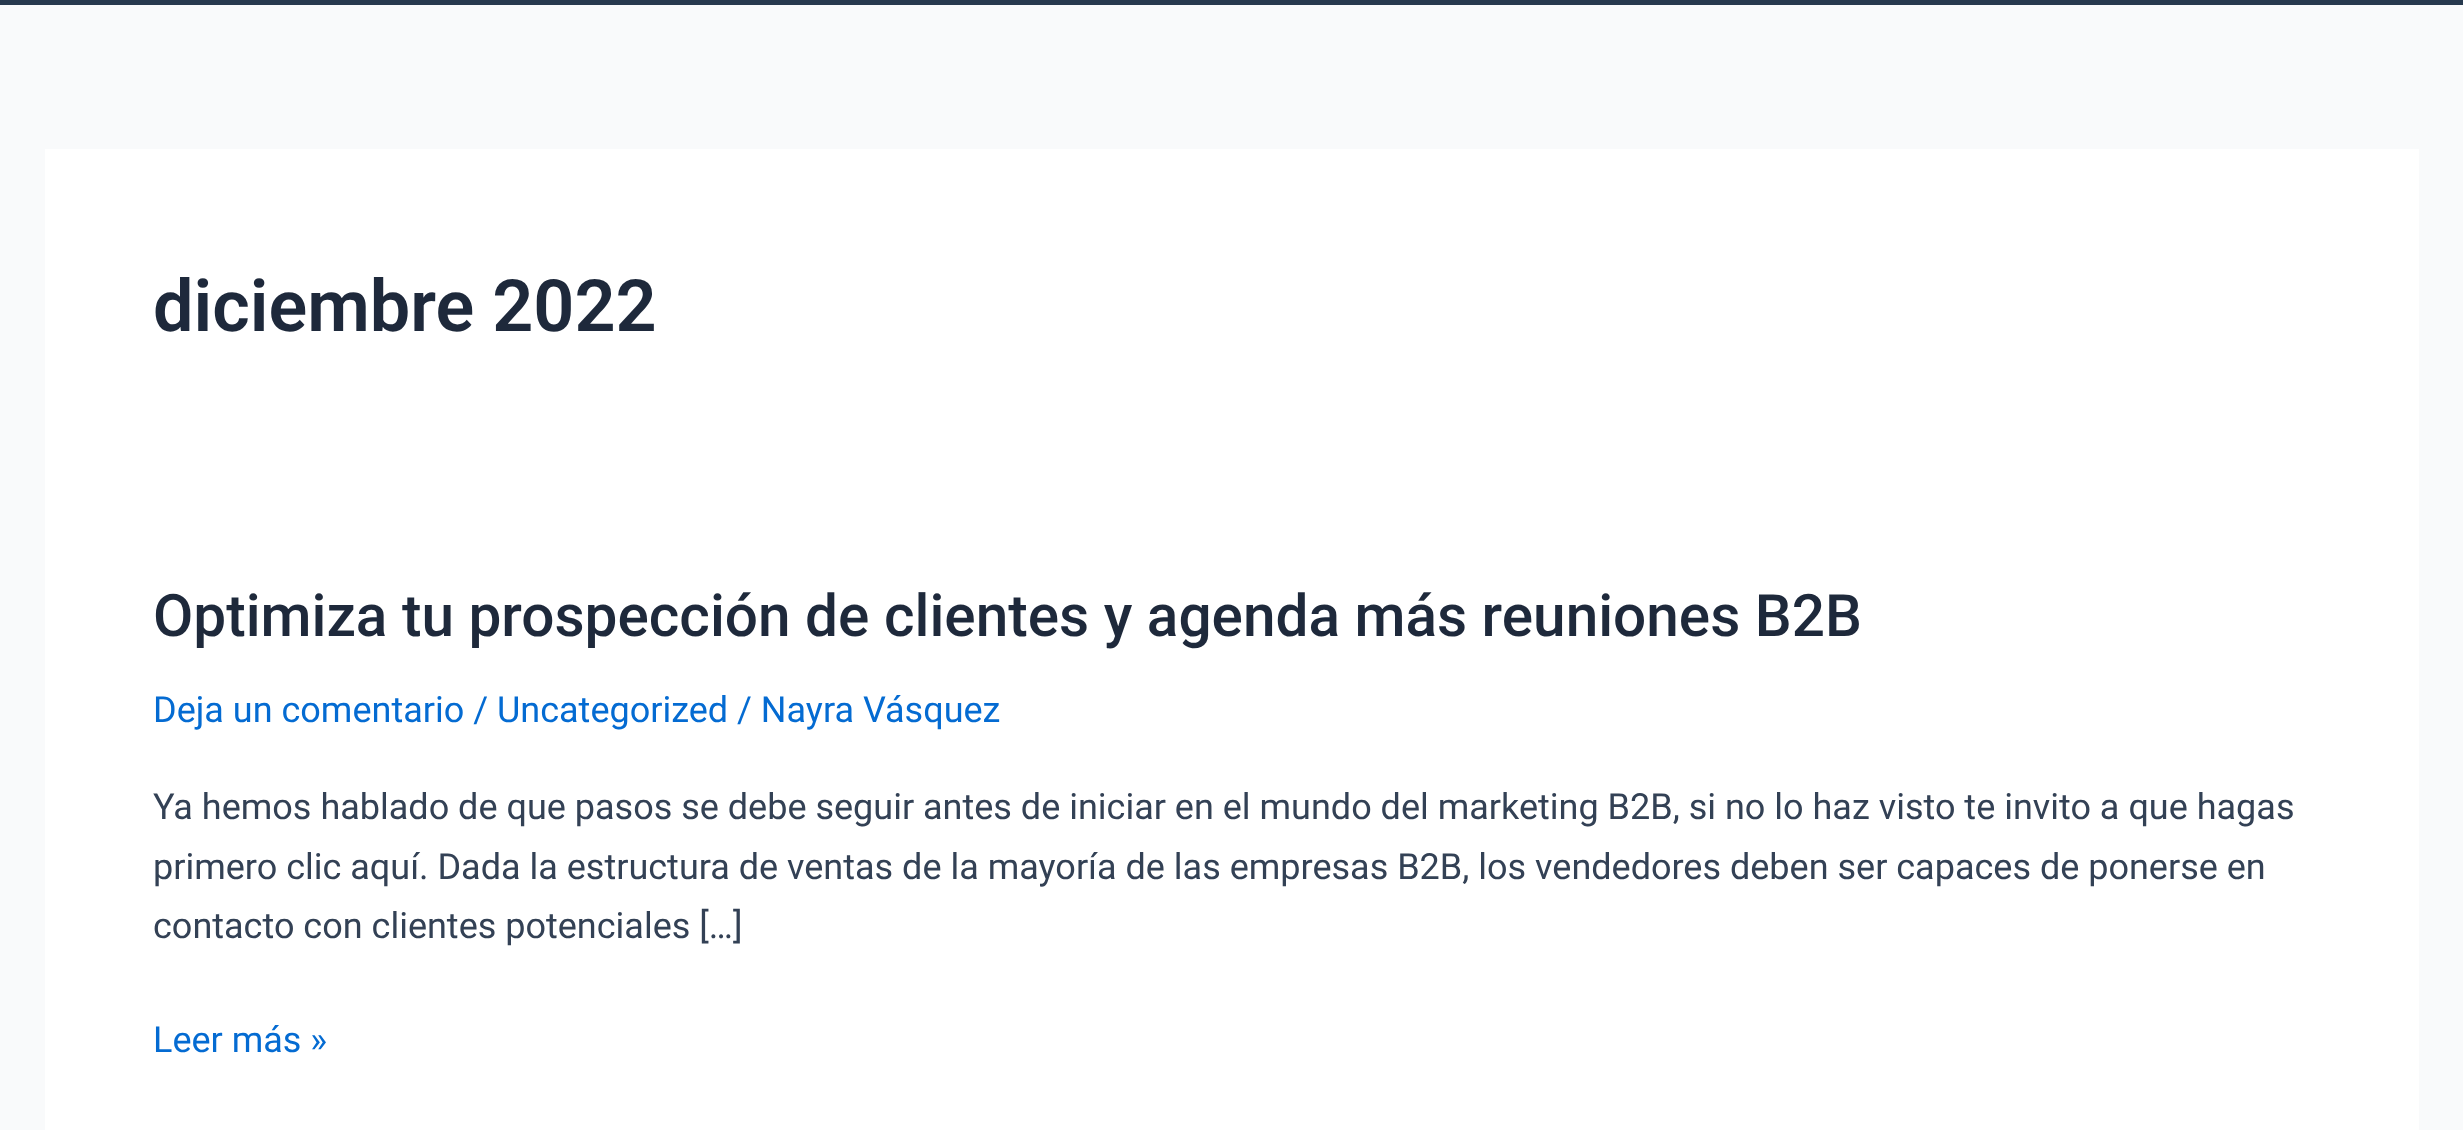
<svg xmlns="http://www.w3.org/2000/svg" width="2463" height="1130" viewBox="0 0 2463 1130">
  <rect width="100%" height="100%" fill="rgb(249,250,251)"/>
  <rect x="0" y="0" width="2463" height="5" fill="rgb(39,57,78)"/>
  <rect x="45" y="149" width="2374" height="981" fill="rgb(255,255,255)"/>
  <text x="153" y="331" font-family="Roboto" font-size="72" font-weight="600" fill="rgb(30,41,59)">diciembre 2022</text>
  <text x="153" y="636" font-family="Roboto" font-size="58.5" font-weight="500" fill="rgb(30,41,59)">Optimiza tu prospección de clientes y agenda más reuniones B2B</text>
  <text x="153" y="722" font-family="Roboto" font-size="36" fill="rgb(4,107,210)">Deja un comentario / Uncategorized / Nayra Vásquez</text>
  <g font-family="Roboto" font-size="36" fill="rgb(51,65,85)">
    <text>
      <tspan x="153" y="819">Ya hemos hablado de que pasos se debe seguir antes de iniciar en el mundo del marketing B2B, si no lo haz visto te invito a que hagas</tspan>
      <tspan x="153" y="879">primero clic aquí. Dada la estructura de ventas de la mayoría de las empresas B2B, los vendedores deben ser capaces de ponerse en</tspan>
      <tspan x="153" y="938">contacto con clientes potenciales […]</tspan>
    </text>
  </g>
  <text x="153" y="1052" font-family="Roboto" font-size="36" fill="rgb(4,107,210)">Leer más »</text>
</svg>
